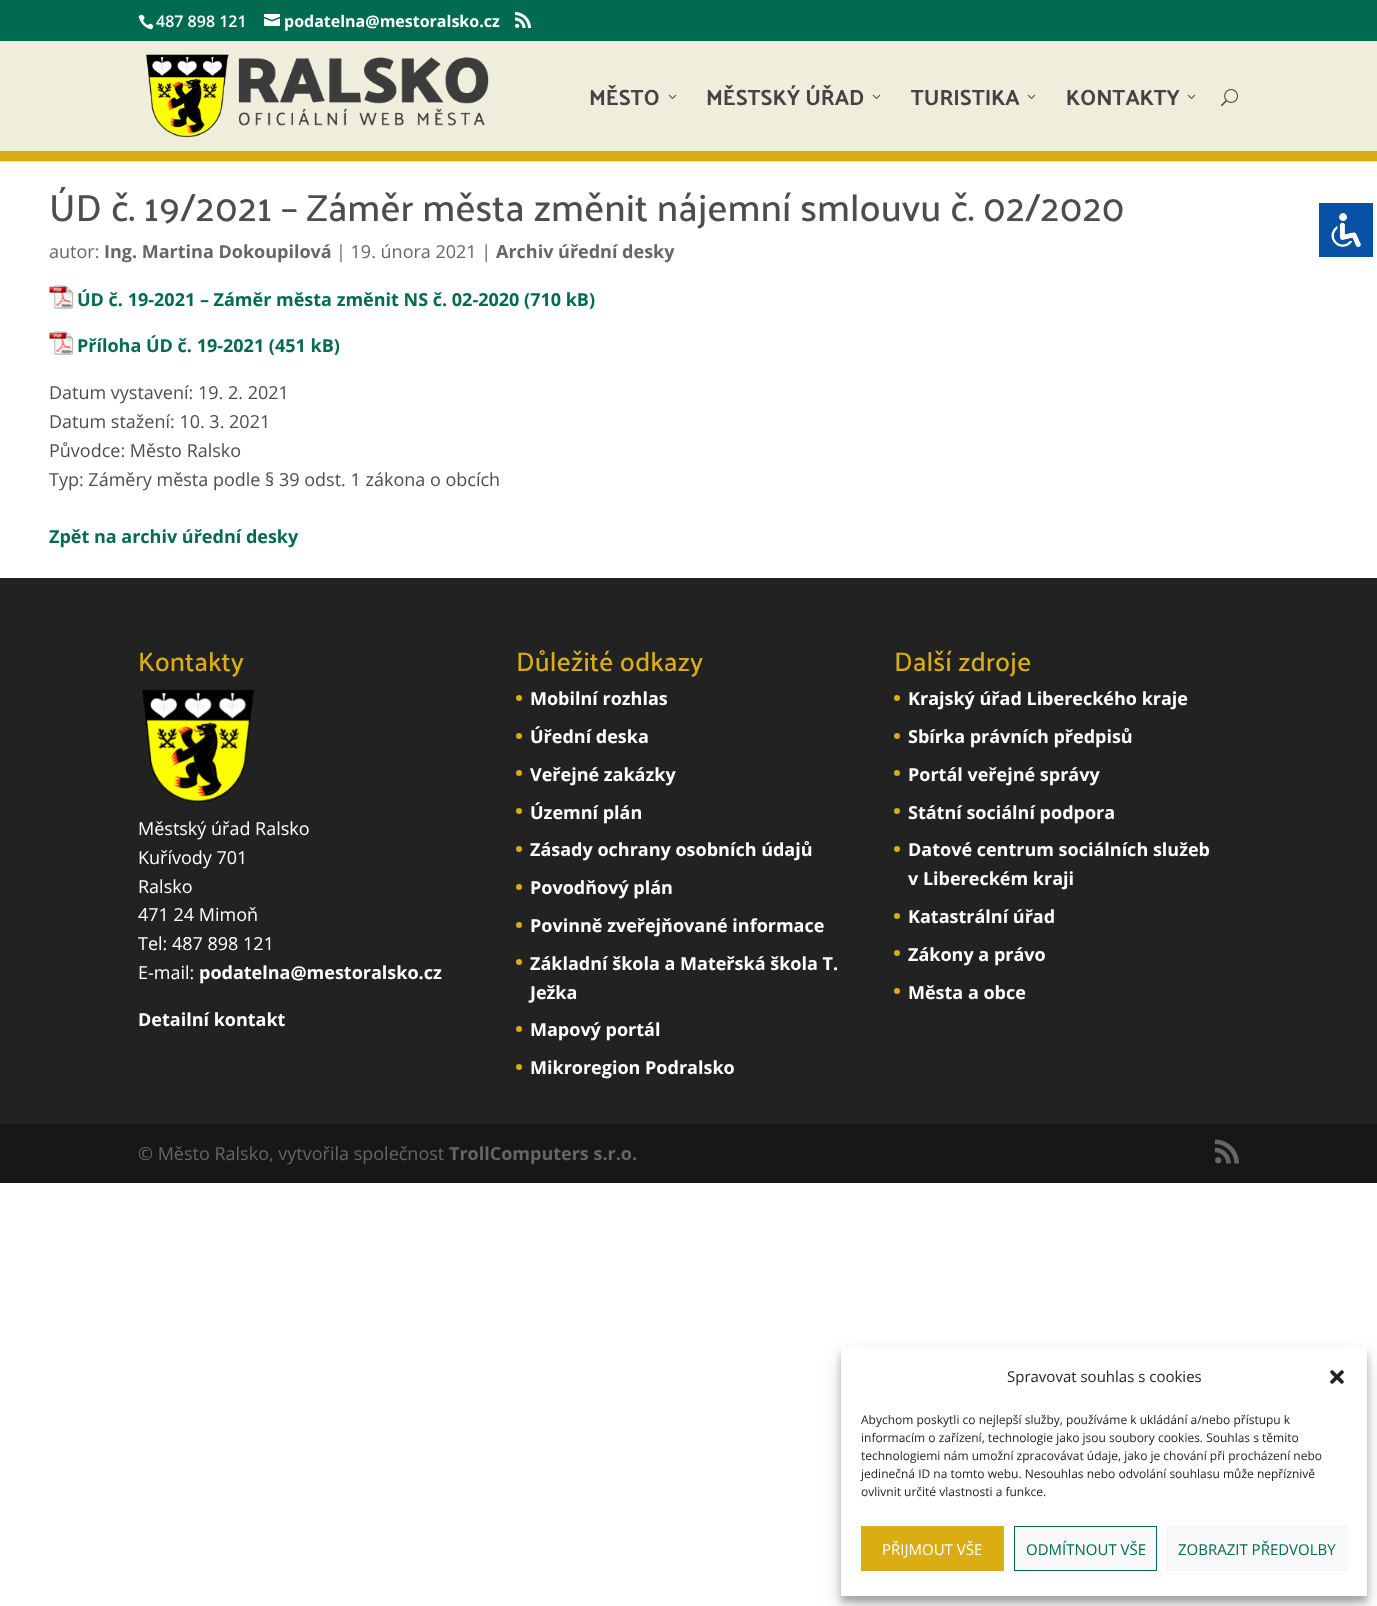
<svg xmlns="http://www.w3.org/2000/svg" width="1377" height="1606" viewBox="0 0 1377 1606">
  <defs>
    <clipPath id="clip1"><path d="M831 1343H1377V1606H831ZM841 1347H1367V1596H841Z" clip-rule="evenodd"/></clipPath>
    <clipPath id="clip2"><path d="M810 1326H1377V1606H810ZM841 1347H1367V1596H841Z" clip-rule="evenodd"/></clipPath>
  </defs>
  <rect width="100%" height="100%" fill="rgb(255,255,255)"/>
  <rect x="0" y="0" width="1377" height="41" fill="rgb(1,107,82)"/>
  <image x="138" y="14" width="16" height="16" href="pic1.png"/>
  <text x="156" y="27" font-family="Open Sans" font-size="16" font-weight="600" fill="rgb(255,255,255)">487 898 121</text>
  <image x="264" y="14" width="16" height="12" href="pic2.png"/>
  <text x="284" y="27" font-family="Open Sans" font-size="16" font-weight="bold" fill="rgb(255,255,255)">podatelna@mestoralsko.cz</text>
  <image x="515" y="12" width="16" height="16" href="pic3.png"/>
  <rect x="0" y="161" width="1377" height="1" fill="rgb(230,230,230)"/>
  <rect x="0" y="41" width="1377" height="110" fill="rgb(239,237,220)"/>
  <rect x="0" y="151" width="1377" height="10" fill="rgb(219,173,21)"/>
  <image x="145" y="54" width="344" height="84" href="pic4.png"/>
  <text x="589" y="105" font-family="Palanquin" font-size="22" font-weight="bold" fill="rgb(68,68,68)">MĚSTO</text>
  <image x="668" y="94" width="9" height="5" href="pic5.png"/>
  <text x="706" y="105" font-family="Palanquin" font-size="22" font-weight="bold" fill="rgb(68,68,68)">MĚSTSKÝ ÚŘAD</text>
  <image x="872" y="94" width="9" height="5" href="pic5.png"/>
  <text x="911" y="105" font-family="Palanquin" font-size="22" font-weight="bold" fill="rgb(68,68,68)">TURISTIKA</text>
  <image x="1027" y="94" width="9" height="5" href="pic5.png"/>
  <text x="1066" y="105" font-family="Palanquin" font-size="22" font-weight="bold" fill="rgb(68,68,68)">KONTAKTY</text>
  <image x="1187" y="94" width="9" height="5" href="pic5.png"/>
  <image x="1221" y="89" width="17" height="18" href="pic6.png"/>
  <text x="49" y="221" font-family="Palanquin" font-size="38" font-weight="500" fill="rgb(77,77,77)">ÚD č. 19/2021 – Záměr města změnit nájemní smlouvu č. 02/2020</text>
  <text x="49" y="258" font-family="Open Sans" font-size="18" fill="rgb(102,102,102)">autor:</text>
  <text x="104" y="258" font-family="Open Sans" font-size="18" font-weight="bold" fill="rgb(102,102,102)">Ing. Martina Dokoupilová</text>
  <text x="336" y="258" font-family="Open Sans" font-size="18" fill="rgb(102,102,102)">| 19. února 2021 |</text>
  <text x="496" y="258" font-family="Open Sans" font-size="18" font-weight="bold" fill="rgb(102,102,102)">Archiv úřední desky</text>
  <image x="49" y="285" width="24" height="24" href="pic7.png"/>
  <text x="77" y="306" font-family="Open Sans" font-size="18" font-weight="bold" fill="rgb(1,107,82)">ÚD č. 19-2021 – Záměr města změnit NS č. 02-2020 (710 kB)</text>
  <image x="49" y="331" width="24" height="24" href="pic7.png"/>
  <text x="77" y="352" font-family="Open Sans" font-size="18" font-weight="bold" fill="rgb(1,107,82)">Příloha ÚD č. 19-2021 (451 kB)</text>
  <g font-family="Open Sans" font-size="18" fill="rgb(77,77,77)">
    <text>
      <tspan x="49" y="399">Datum vystavení: 19. 2. 2021</tspan>
      <tspan x="49" y="428">Datum stažení: 10. 3. 2021</tspan>
      <tspan x="49" y="457">Původce: Město Ralsko</tspan>
      <tspan x="49" y="486">Typ: Záměry města podle § 39 odst. 1 zákona o obcích</tspan>
    </text>
  </g>
  <text x="49" y="543" font-family="Open Sans" font-size="18" font-weight="bold" fill="rgb(1,107,82)">Zpět na archiv úřední desky</text>
  <rect x="0" y="578" width="1377" height="546" fill="rgb(34,34,34)"/>
  <text x="138" y="671" font-family="Palanquin" font-size="27" font-weight="500" fill="rgb(219,173,21)">Kontakty</text>
  <image x="142" y="689" width="113" height="113" href="pic8.png"/>
  <g font-family="Open Sans" font-size="18" fill="rgb(255,255,255)">
    <text>
      <tspan x="138" y="835">Městský úřad Ralsko</tspan>
      <tspan x="138" y="864">Kuřívody 701</tspan>
      <tspan x="138" y="893">Ralsko</tspan>
      <tspan x="138" y="921">471 24 Mimoň</tspan>
      <tspan x="138" y="950">Tel: 487 898 121</tspan>
      <tspan x="138" y="979">E-mail:</tspan>
    </text>
  </g>
  <g font-family="Open Sans" font-size="18" font-weight="bold" fill="rgb(255,255,255)">
    <text x="199" y="979">podatelna@mestoralsko.cz</text>
    <text x="138" y="1026">Detailní kontakt</text>
  </g>
  <text x="516" y="671" font-family="Palanquin" font-size="27" font-weight="500" fill="rgb(219,173,21)">Důležité odkazy</text>
  <circle cx="519" cy="698" r="3" fill="rgb(219,173,21)"/>
  <text x="530" y="705" font-family="Open Sans" font-size="18" font-weight="bold" fill="rgb(255,255,255)">Mobilní rozhlas</text>
  <circle cx="519" cy="736" r="3" fill="rgb(219,173,21)"/>
  <text x="530" y="743" font-family="Open Sans" font-size="18" font-weight="bold" fill="rgb(255,255,255)">Úřední deska</text>
  <circle cx="519" cy="773" r="3" fill="rgb(219,173,21)"/>
  <text x="530" y="781" font-family="Open Sans" font-size="18" font-weight="bold" fill="rgb(255,255,255)">Veřejné zakázky</text>
  <circle cx="519" cy="811" r="3" fill="rgb(219,173,21)"/>
  <text x="530" y="819" font-family="Open Sans" font-size="18" font-weight="bold" fill="rgb(255,255,255)">Územní plán</text>
  <circle cx="519" cy="849" r="3" fill="rgb(219,173,21)"/>
  <text x="530" y="856" font-family="Open Sans" font-size="18" font-weight="bold" fill="rgb(255,255,255)">Zásady ochrany osobních údajů</text>
  <circle cx="519" cy="887" r="3" fill="rgb(219,173,21)"/>
  <text x="530" y="894" font-family="Open Sans" font-size="18" font-weight="bold" fill="rgb(255,255,255)">Povodňový plán</text>
  <circle cx="519" cy="925" r="3" fill="rgb(219,173,21)"/>
  <text x="530" y="932" font-family="Open Sans" font-size="18" font-weight="bold" fill="rgb(255,255,255)">Povinně zveřejňované informace</text>
  <circle cx="519" cy="962" r="3" fill="rgb(219,173,21)"/>
  <g font-family="Open Sans" font-size="18" font-weight="bold" fill="rgb(255,255,255)">
    <text>
      <tspan x="530" y="970">Základní škola a Mateřská škola T.</tspan>
      <tspan x="530" y="999">Ježka</tspan>
    </text>
  </g>
  <circle cx="519" cy="1029" r="3" fill="rgb(219,173,21)"/>
  <text x="530" y="1036" font-family="Open Sans" font-size="18" font-weight="bold" fill="rgb(255,255,255)">Mapový portál</text>
  <circle cx="519" cy="1067" r="3" fill="rgb(219,173,21)"/>
  <text x="530" y="1074" font-family="Open Sans" font-size="18" font-weight="bold" fill="rgb(255,255,255)">Mikroregion Podralsko</text>
  <text x="894" y="671" font-family="Palanquin" font-size="27" font-weight="500" fill="rgb(219,173,21)">Další zdroje</text>
  <circle cx="897" cy="698" r="3" fill="rgb(219,173,21)"/>
  <text x="908" y="705" font-family="Open Sans" font-size="18" font-weight="bold" fill="rgb(255,255,255)">Krajský úřad Libereckého kraje</text>
  <circle cx="897" cy="736" r="3" fill="rgb(219,173,21)"/>
  <text x="908" y="743" font-family="Open Sans" font-size="18" font-weight="bold" fill="rgb(255,255,255)">Sbírka právních předpisů</text>
  <circle cx="897" cy="773" r="3" fill="rgb(219,173,21)"/>
  <text x="908" y="781" font-family="Open Sans" font-size="18" font-weight="bold" fill="rgb(255,255,255)">Portál veřejné správy</text>
  <circle cx="897" cy="811" r="3" fill="rgb(219,173,21)"/>
  <text x="908" y="819" font-family="Open Sans" font-size="18" font-weight="bold" fill="rgb(255,255,255)">Státní sociální podpora</text>
  <circle cx="897" cy="849" r="3" fill="rgb(219,173,21)"/>
  <g font-family="Open Sans" font-size="18" font-weight="bold" fill="rgb(255,255,255)">
    <text>
      <tspan x="908" y="856">Datové centrum sociálních služeb</tspan>
      <tspan x="908" y="885">v Libereckém kraji</tspan>
    </text>
  </g>
  <circle cx="897" cy="916" r="3" fill="rgb(219,173,21)"/>
  <text x="908" y="923" font-family="Open Sans" font-size="18" font-weight="bold" fill="rgb(255,255,255)">Katastrální úřad</text>
  <circle cx="897" cy="953" r="3" fill="rgb(219,173,21)"/>
  <text x="908" y="961" font-family="Open Sans" font-size="18" font-weight="bold" fill="rgb(255,255,255)">Zákony a právo</text>
  <circle cx="897" cy="991" r="3" fill="rgb(219,173,21)"/>
  <text x="908" y="999" font-family="Open Sans" font-size="18" font-weight="bold" fill="rgb(255,255,255)">Města a obce</text>
  <rect x="0" y="1124" width="1377" height="59" fill="rgb(23,23,23)"/>
  <text x="138" y="1160" font-family="Open Sans" font-size="18" fill="rgb(102,102,102)">© Město Ralsko, vytvořila společnost</text>
  <text x="449" y="1160" font-family="Open Sans" font-size="18" font-weight="bold" fill="rgb(102,102,102)">TrollComputers s.r.o.</text>
  <image x="1215" y="1139" width="24" height="25" href="pic9.png"/>
  <g clip-path="url(#clip1)">
    <rect x="841" y="1353" width="526" height="249" fill="rgba(0,0,0,0.23)" filter="blur(3px)"/>
  </g>
  <g clip-path="url(#clip2)">
    <rect x="841" y="1357" width="526" height="249" fill="rgba(0,0,0,0.19)" filter="blur(10px)"/>
  </g>
  <text x="1007" y="1382" font-family="Open Sans" font-size="15" fill="rgb(34,34,34)">Spravovat souhlas s cookies</text>
  <image x="1330" y="1370" width="14" height="14" href="pic10.png"/>
  <g font-family="Open Sans" font-size="12" fill="rgb(34,34,34)">
    <text>
      <tspan x="861" y="1424">Abychom poskytli co nejlepší služby, používáme k ukládání a/nebo přístupu k</tspan>
      <tspan x="861" y="1442">informacím o zařízení, technologie jako jsou soubory cookies. Souhlas s těmito</tspan>
      <tspan x="861" y="1460">technologiemi nám umožní zpracovávat údaje, jako je chování při procházení nebo</tspan>
      <tspan x="861" y="1478">jedinečná ID na tomto webu. Nesouhlas nebo odvolání souhlasu může nepříznivě</tspan>
      <tspan x="861" y="1496">ovlivnit určité vlastnosti a funkce.</tspan>
    </text>
  </g>
  <rect x="861" y="1526" width="143" height="45" fill="rgb(219,173,21)"/>
  <text x="882" y="1555" font-family="Open Sans" font-size="15" fill="rgb(255,255,255)">PŘIJMOUT VŠE</text>
  <rect x="1014.5" y="1526.5" width="142" height="44" fill="rgb(249,249,249)" stroke="rgb(1,107,82)"/>
  <text x="1026" y="1555" font-family="Open Sans" font-size="15" fill="rgb(1,107,82)">ODMÍTNOUT VŠE</text>
  <rect x="1167.5" y="1526.5" width="179" height="44" fill="rgb(249,249,249)" stroke="rgb(242,242,242)"/>
  <text x="1178" y="1555" font-family="Open Sans" font-size="15" fill="rgb(1,107,82)">ZOBRAZIT PŘEDVOLBY</text>
  <rect x="1317.5" y="201.5" width="57" height="57" rx="0.5" fill="rgb(8,81,164)" stroke="rgb(255,255,255)" stroke-width="3"/>
  <image x="1331" y="213" width="30" height="34" href="pic11.png"/>
</svg>
